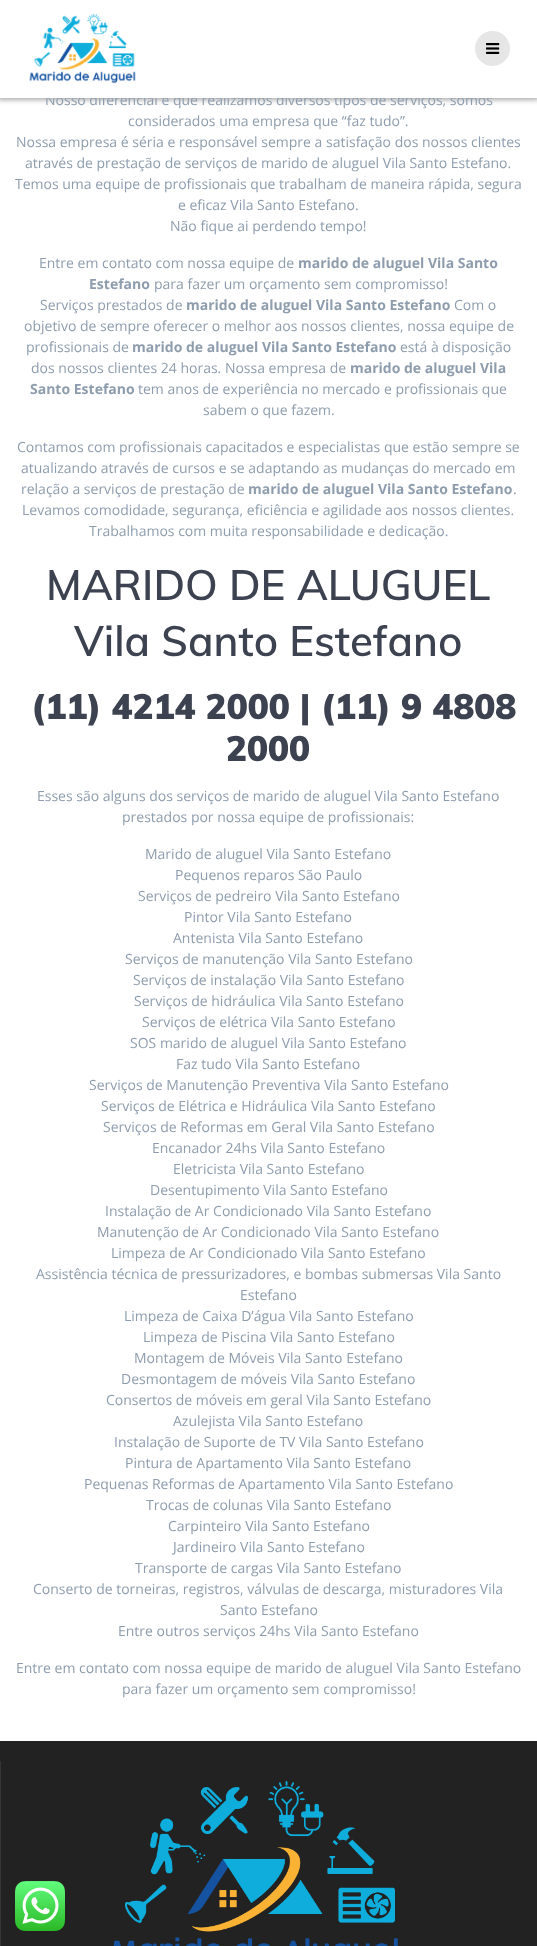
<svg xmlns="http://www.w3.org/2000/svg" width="537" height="1946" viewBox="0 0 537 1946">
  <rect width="100%" height="100%" fill="rgb(255,255,255)"/>
  <rect x="-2" y="-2" width="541" height="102" fill="rgba(0,0,0,0.33)" filter="blur(2.5px)"/>
  <text x="45" y="105" font-family="Open Sans" font-size="14" fill="rgb(142,157,174)">Nosso diferencial é que realizamos diversos tipos de serviços, somos</text>
  <rect x="0" y="0" width="537" height="98" fill="rgb(255,255,255)"/>
  <image x="29" y="14" width="107" height="70" href="pic1.png"/>
  <circle cx="492.5" cy="48.5" r="17.5" fill="rgb(230,230,230)"/>
  <image x="486" y="43" width="14" height="11" href="pic2.png"/>
  <g font-family="Open Sans" font-size="14" fill="rgb(142,157,174)">
    <text x="128" y="126">considerados uma empresa que “faz tudo”.</text>
    <text x="16" y="147">Nossa empresa é séria e responsável sempre a satisfação dos nossos clientes</text>
    <text x="25" y="168">através de prestação de serviços de marido de aluguel Vila Santo Estefano.</text>
    <text x="15" y="189">Temos uma equipe de profissionais que trabalham de maneira rápida, segura</text>
    <text x="178" y="210">e eficaz Vila Santo Estefano.</text>
    <text x="170" y="231">Não fique ai perdendo tempo!</text>
    <text x="39" y="268">Entre em contato com nossa equipe de</text>
  </g>
  <g font-family="Open Sans" font-size="14" font-weight="bold" fill="rgb(142,157,174)">
    <text x="298" y="268">marido de aluguel Vila Santo</text>
    <text x="89" y="289">Estefano</text>
  </g>
  <g font-family="Open Sans" font-size="14" fill="rgb(142,157,174)">
    <text x="154" y="289">para fazer um orçamento sem compromisso!</text>
    <text x="40" y="310">Serviços prestados de</text>
  </g>
  <text x="186" y="310" font-family="Open Sans" font-size="14" font-weight="bold" fill="rgb(142,157,174)">marido de aluguel Vila Santo Estefano</text>
  <g font-family="Open Sans" font-size="14" fill="rgb(142,157,174)">
    <text x="454" y="310">Com o</text>
    <text x="24" y="331">objetivo de sempre oferecer o melhor aos nossos clientes, nossa equipe de</text>
    <text x="26" y="352">profissionais de</text>
  </g>
  <text x="132" y="352" font-family="Open Sans" font-size="14" font-weight="bold" fill="rgb(142,157,174)">marido de aluguel Vila Santo Estefano</text>
  <g font-family="Open Sans" font-size="14" fill="rgb(142,157,174)">
    <text x="400" y="352">está à disposição</text>
    <text x="31" y="373">dos nossos clientes 24 horas. Nossa empresa de</text>
  </g>
  <g font-family="Open Sans" font-size="14" font-weight="bold" fill="rgb(142,157,174)">
    <text x="350" y="373">marido de aluguel Vila</text>
    <text x="30" y="394">Santo Estefano</text>
  </g>
  <g font-family="Open Sans" font-size="14" fill="rgb(142,157,174)">
    <text x="138" y="394">tem anos de experiência no mercado e profissionais que</text>
    <text x="203" y="415">sabem o que fazem.</text>
    <text x="17" y="452">Contamos com profissionais capacitados e especialistas que estão sempre se</text>
    <text>
      <tspan x="21" y="473">atualizando através de cursos e se adaptando as mudanças do mercado em</tspan>
      <tspan x="21" y="494">relação a serviços de prestação de</tspan>
    </text>
  </g>
  <text x="248" y="494" font-family="Open Sans" font-size="14" font-weight="bold" fill="rgb(142,157,174)">marido de aluguel Vila Santo Estefano</text>
  <g font-family="Open Sans" font-size="14" fill="rgb(142,157,174)">
    <text x="513" y="494">.</text>
    <text x="22" y="515">Levamos comodidade, segurança, eficiência e agilidade aos nossos clientes.</text>
    <text x="89" y="536">Trabalhamos com muita responsabilidade e dedicação.</text>
  </g>
  <g font-family="Muli" font-size="42" font-weight="600" fill="rgb(60,66,79)">
    <text x="46" y="600">MARIDO DE ALUGUEL</text>
    <text x="74" y="656">Vila Santo Estefano</text>
  </g>
  <g font-family="Muli" font-size="35" font-weight="900" fill="rgb(60,66,79)">
    <text x="31" y="719">(11) 4214 2000 | (11) 9 4808</text>
    <text x="226" y="761">2000</text>
  </g>
  <g font-family="Open Sans" font-size="14" fill="rgb(142,157,174)">
    <text x="37" y="801">Esses são alguns dos serviços de marido de aluguel Vila Santo Estefano</text>
    <text x="122" y="822">prestados por nossa equipe de profissionais:</text>
    <text x="145" y="859">Marido de aluguel Vila Santo Estefano</text>
    <text x="175" y="880">Pequenos reparos São Paulo</text>
    <text x="138" y="901">Serviços de pedreiro Vila Santo Estefano</text>
    <text x="184" y="922">Pintor Vila Santo Estefano</text>
    <text x="173" y="943">Antenista Vila Santo Estefano</text>
    <text x="125" y="964">Serviços de manutenção Vila Santo Estefano</text>
    <text x="133" y="985">Serviços de instalação Vila Santo Estefano</text>
    <text x="134" y="1006">Serviços de hidráulica Vila Santo Estefano</text>
    <text x="142" y="1027">Serviços de elétrica Vila Santo Estefano</text>
    <text x="130" y="1048">SOS marido de aluguel Vila Santo Estefano</text>
    <text x="176" y="1069">Faz tudo Vila Santo Estefano</text>
    <text x="89" y="1090">Serviços de Manutenção Preventiva Vila Santo Estefano</text>
    <text x="101" y="1111">Serviços de Elétrica e Hidráulica Vila Santo Estefano</text>
    <text x="103" y="1132">Serviços de Reformas em Geral Vila Santo Estefano</text>
    <text x="152" y="1153">Encanador 24hs Vila Santo Estefano</text>
    <text x="173" y="1174">Eletricista Vila Santo Estefano</text>
    <text x="150" y="1195">Desentupimento Vila Santo Estefano</text>
    <text x="105" y="1216">Instalação de Ar Condicionado Vila Santo Estefano</text>
    <text x="97" y="1237">Manutenção de Ar Condicionado Vila Santo Estefano</text>
    <text x="111" y="1258">Limpeza de Ar Condicionado Vila Santo Estefano</text>
    <text x="36" y="1279">Assistência técnica de pressurizadores, e bombas submersas Vila Santo</text>
    <text x="240" y="1300">Estefano</text>
    <text x="124" y="1321">Limpeza de Caixa D’água Vila Santo Estefano</text>
    <text x="143" y="1342">Limpeza de Piscina Vila Santo Estefano</text>
    <text x="134" y="1363">Montagem de Móveis Vila Santo Estefano</text>
    <text x="121" y="1384">Desmontagem de móveis Vila Santo Estefano</text>
    <text x="106" y="1405">Consertos de móveis em geral Vila Santo Estefano</text>
    <text x="173" y="1426">Azulejista Vila Santo Estefano</text>
    <text x="114" y="1447">Instalação de Suporte de TV Vila Santo Estefano</text>
    <text x="125" y="1468">Pintura de Apartamento Vila Santo Estefano</text>
    <text x="84" y="1489">Pequenas Reformas de Apartamento Vila Santo Estefano</text>
    <text x="146" y="1510">Trocas de colunas Vila Santo Estefano</text>
    <text x="168" y="1531">Carpinteiro Vila Santo Estefano</text>
    <text x="173" y="1552">Jardineiro Vila Santo Estefano</text>
    <text x="135" y="1573">Transporte de cargas Vila Santo Estefano</text>
    <text x="33" y="1594">Conserto de torneiras, registros, válvulas de descarga, misturadores Vila</text>
    <text x="220" y="1615">Santo Estefano</text>
    <text x="118" y="1636">Entre outros serviços 24hs Vila Santo Estefano</text>
    <text x="16" y="1673">Entre em contato com nossa equipe de marido de aluguel Vila Santo Estefano</text>
    <text x="122" y="1694">para fazer um orçamento sem compromisso!</text>
  </g>
  <rect x="0" y="1741" width="537" height="205" fill="rgb(34,34,34)"/>
  <rect x="0" y="1761" width="1" height="185" fill="rgb(53,53,53)"/>
  <image x="113" y="1781" width="285" height="165" href="pic3.png"/>
  <image x="15" y="1881" width="50" height="50" href="pic4.png"/>
</svg>
